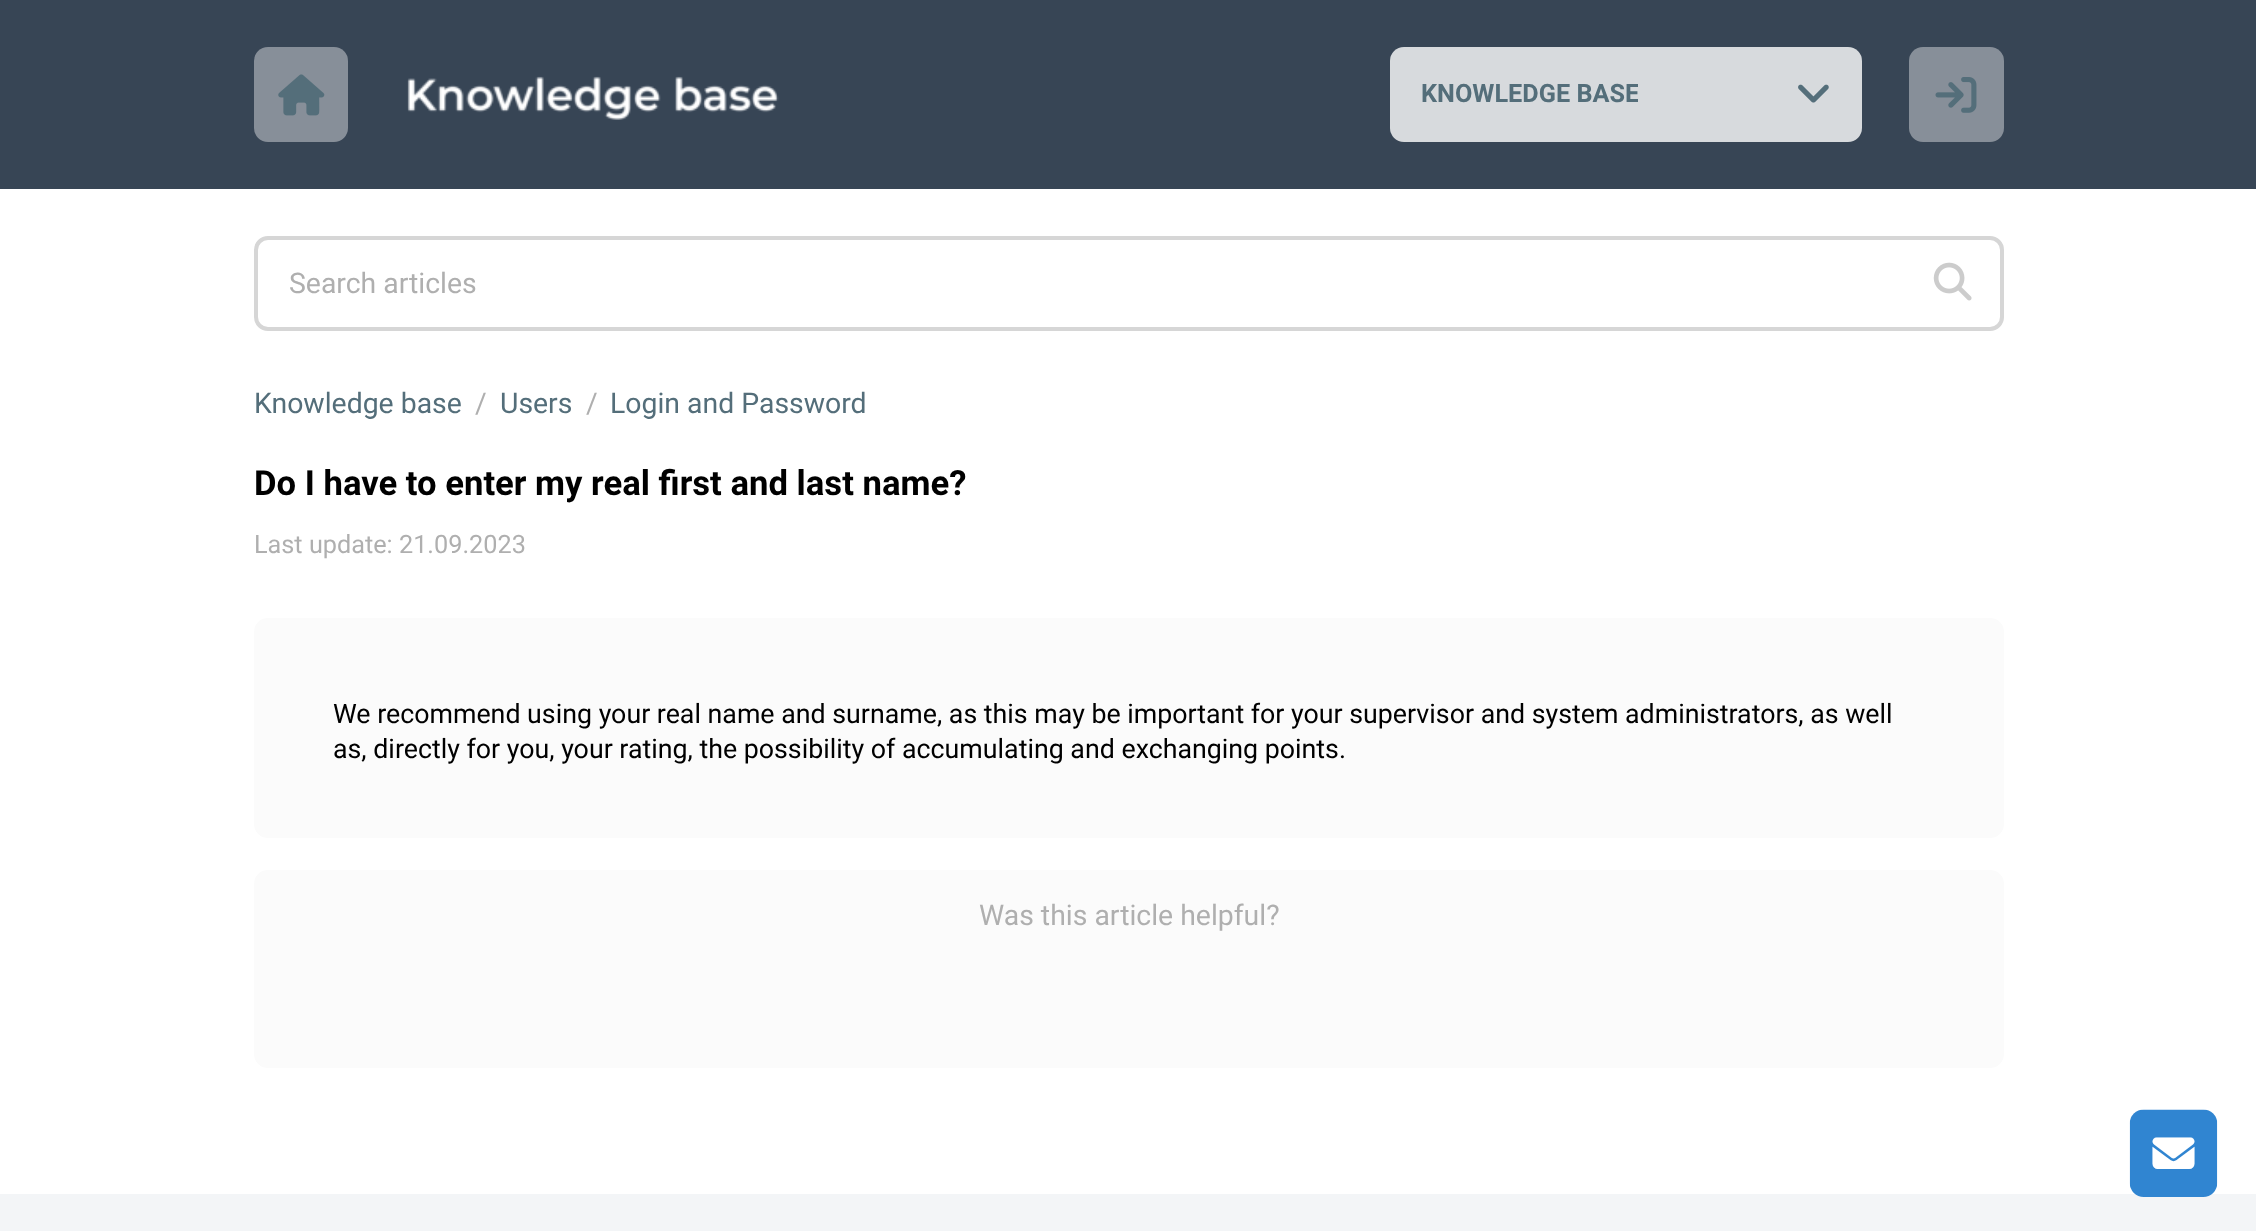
<svg xmlns="http://www.w3.org/2000/svg" width="2256" height="1231" viewBox="0 0 2256 1231">
  <defs>
    <clipPath id="clip1"><rect x="1421" y="47" width="217" height="95"/></clipPath>
  </defs>
  <rect width="100%" height="100%" fill="rgb(255,255,255)"/>
  <rect x="0" y="0" width="2256" height="189" fill="rgb(55,69,85)"/>
  <rect x="254" y="47" width="94" height="95" rx="14" fill="rgb(135,143,153)"/>
  <image x="278" y="74" width="47" height="42" href="pic1.png"/>
  <image x="407" y="76" width="372" height="44" href="pic2.png"/>
  <rect x="1390" y="47" width="472" height="95" rx="14" fill="rgb(215,218,221)"/>
  <g clip-path="url(#clip1)">
    <text x="1421" y="102" font-family="Roboto" font-size="25.25" font-weight="bold" fill="rgb(84,110,122)">KNOWLEDGE BASE</text>
  </g>
  <image x="1798" y="84" width="31" height="19" href="pic3.png"/>
  <rect x="1909" y="47" width="95" height="95" rx="14" fill="rgb(135,143,153)"/>
  <image x="1935" y="77" width="42" height="36" href="pic4.png"/>
  <rect x="256" y="238" width="1746" height="91" rx="12" fill="none" stroke="rgb(214,214,214)" stroke-width="4"/>
  <text x="289" y="293" font-family="Roboto" font-size="28.4" fill="rgb(175,175,175)">Search articles</text>
  <image x="1933" y="262" width="39" height="39" href="pic5.png"/>
  <text x="254" y="413" font-family="Roboto" font-size="28.4" fill="rgb(84,110,122)">Knowledge base</text>
  <text x="475" y="413" font-family="Roboto" font-size="28.4" fill="rgb(175,175,175)">/</text>
  <text x="500" y="413" font-family="Roboto" font-size="28.4" fill="rgb(84,110,122)">Users</text>
  <text x="586" y="413" font-family="Roboto" font-size="28.4" fill="rgb(175,175,175)">/</text>
  <text x="610" y="413" font-family="Roboto" font-size="28.4" fill="rgb(84,110,122)">Login and Password</text>
  <text x="254" y="495" font-family="Roboto" font-size="34.65" font-weight="bold" fill="rgb(0,0,0)">Do I have to enter my real first and last name?</text>
  <text x="254" y="553" font-family="Roboto" font-size="25.25" fill="rgb(175,175,175)">Last update: 21.09.2023</text>
  <rect x="254" y="618" width="1750" height="220" rx="14" fill="rgb(251,251,251)"/>
  <g font-family="Roboto" font-size="26.78" fill="rgb(0,0,0)">
    <text>
      <tspan x="333" y="723">We recommend using your real name and surname, as this may be important for your supervisor and system administrators, as well</tspan>
      <tspan x="333" y="758">as, directly for you, your rating, the possibility of accumulating and exchanging points.</tspan>
    </text>
  </g>
  <rect x="254" y="870" width="1750" height="198" rx="14" fill="rgb(251,251,251)"/>
  <text x="979" y="925" font-family="Roboto" font-size="28.4" fill="rgb(175,175,175)">Was this article helpful?</text>
  <rect x="0" y="1194" width="2256" height="37" fill="rgb(243,245,247)"/>
  <image x="2129" y="1109" width="89" height="88" href="pic6.png"/>
</svg>
